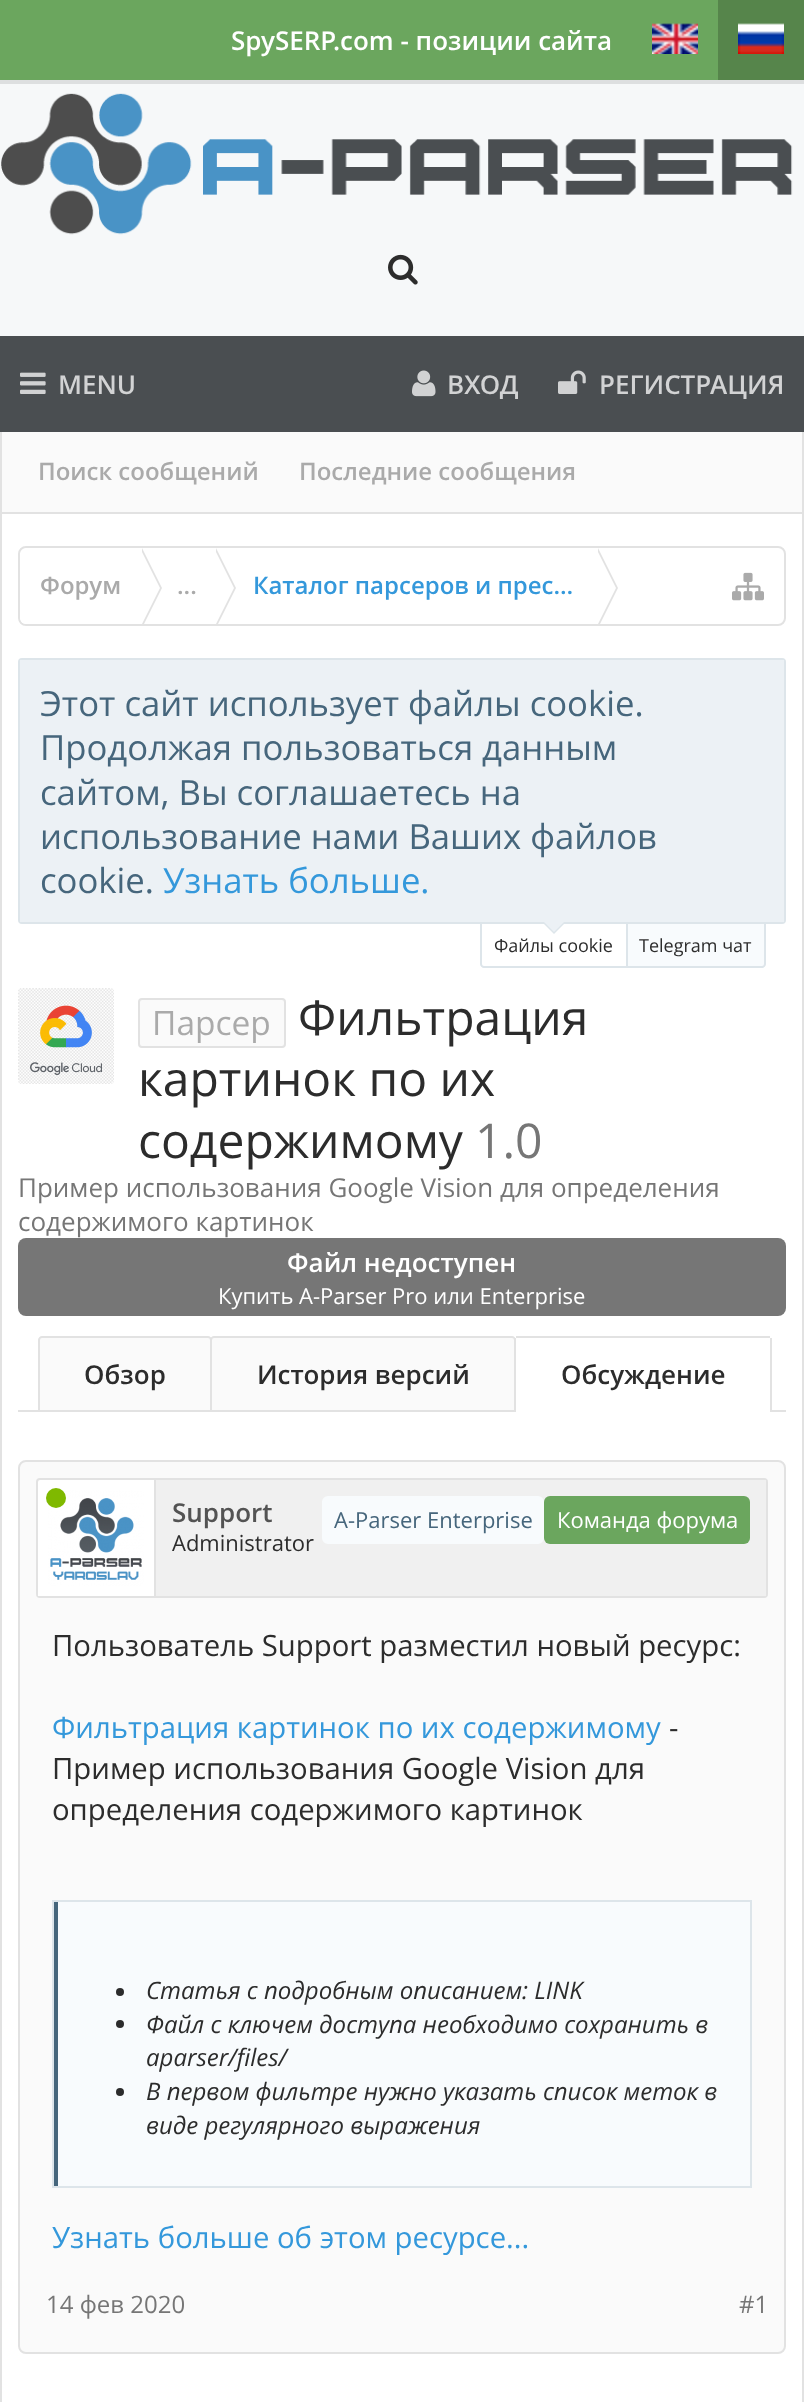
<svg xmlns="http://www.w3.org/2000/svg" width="804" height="2402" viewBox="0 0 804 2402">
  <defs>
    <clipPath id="clip1"><rect x="20" y="548" width="764" height="76" rx="6"/></clipPath>
  </defs>
  <rect width="100%" height="100%" fill="rgb(246,248,249)"/>
  <rect x="0" y="80" width="804" height="4" fill="rgb(221,223,224)"/>
  <rect x="0" y="0" width="718" height="80" fill="rgb(107,166,94)"/>
  <text x="231" y="50" font-family="Open Sans" font-size="26" font-weight="600" fill="rgb(255,255,255)">SpySERP.com - позиции сайта</text>
  <image x="652" y="23" width="46" height="31" href="pic1.png"/>
  <rect x="718" y="0" width="86" height="80" fill="rgb(86,133,75)"/>
  <image x="738" y="23" width="46" height="31" href="pic2.png"/>
  <image x="1" y="93" width="792" height="142" href="pic3.png"/>
  <image x="388" y="254" width="30" height="31" href="pic4.png"/>
  <rect x="0" y="336" width="804" height="96" fill="rgb(74,78,81)"/>
  <image x="20" y="372" width="26" height="22" href="pic5.png"/>
  <text x="58" y="394" font-family="Open Sans" font-size="26" font-weight="600" fill="rgb(210,211,212)">MENU</text>
  <rect x="2" y="432" width="800" height="80" fill="rgb(250,250,250)"/>
  <rect x="802" y="432" width="2" height="1970" fill="rgb(226,226,226)"/>
  <rect x="0" y="512" width="804" height="2" fill="rgb(226,226,226)"/>
  <rect x="0" y="432" width="2" height="82" fill="rgb(226,226,226)"/>
  <g font-family="Open Sans" font-size="24" font-weight="600" fill="rgb(170,170,170)">
    <text x="38" y="480">Поиск сообщений</text>
    <text x="299" y="480">Последние сообщения</text>
  </g>
  <image x="412" y="370" width="24" height="27" href="pic6.png"/>
  <text x="447" y="394" font-family="Open Sans" font-size="26" font-weight="600" fill="rgb(210,211,212)">ВХОД</text>
  <image x="558" y="370" width="28" height="24" href="pic7.png"/>
  <text x="599" y="394" font-family="Open Sans" font-size="26" font-weight="600" fill="rgb(210,211,212)">РЕГИСТРАЦИЯ</text>
  <rect x="2" y="514" width="800" height="1888" fill="rgb(255,255,255)"/>
  <rect x="0" y="514" width="2" height="1888" fill="rgb(226,226,226)"/>
  <rect x="19" y="547" width="766" height="78" rx="7" fill="none" stroke="rgb(226,226,226)" stroke-width="2"/>
  <g clip-path="url(#clip1)">
    <path d="M28 548H142V626H28C23.5 626 20 622.5 20 618V556C20 551.5 23.5 548 28 548Z" fill="rgb(255,255,255)"/>
  </g>
  <text x="40" y="594" font-family="Open Sans" font-size="24" font-weight="600" fill="rgb(170,170,170)">Форум</text>
  <path d="M144 624H142V548L162 588Z" fill="rgb(226,226,226)"/>
  <path d="M142 624H140V548L160 588Z" fill="rgb(255,255,255)"/>
  <text x="177" y="594" font-family="Open Sans" font-size="24" font-weight="600" fill="rgb(170,170,170)">...</text>
  <path d="M218 624H216V548L236 588Z" fill="rgb(226,226,226)"/>
  <path d="M216 624H214V548L234 588Z" fill="rgb(255,255,255)"/>
  <text x="253" y="594" font-family="Open Sans" font-size="24" font-weight="600" fill="rgb(52,152,219)">Каталог парсеров и прес…</text>
  <path d="M600 624H598V548L618 588Z" fill="rgb(226,226,226)"/>
  <path d="M598 624H596V548L616 588Z" fill="rgb(255,255,255)"/>
  <image x="732" y="572" width="32" height="29" href="pic8.png"/>
  <rect x="19" y="659" width="766" height="264" rx="3" fill="none" stroke="rgb(221,229,234)" stroke-width="2"/>
  <rect x="20" y="660" width="764" height="262" fill="rgb(236,241,245)"/>
  <g font-family="Open Sans" font-size="34.7" fill="rgb(70,102,124)">
    <text>
      <tspan x="40" y="716">Этот сайт использует файлы cookie.</tspan>
      <tspan x="40" y="760">Продолжая пользоваться данным</tspan>
      <tspan x="40" y="805">сайтом, Вы соглашаетесь на</tspan>
      <tspan x="40" y="849">использование нами Ваших файлов</tspan>
      <tspan x="40" y="893">cookie.</tspan>
    </text>
  </g>
  <text x="163" y="893" font-family="Open Sans" font-size="34.7" fill="rgb(52,152,219)">Узнать больше.</text>
  <path d="M481 923H627V967H484C482.5 967 481 965.5 481 964Z" fill="rgb(255,255,255)" stroke="rgb(221,229,234)" stroke-width="2"/>
  <path d="M544 924H564L554 934Z" fill="rgb(221,229,234)"/>
  <path d="M544 922H564L554 932Z" fill="rgb(236,241,245)"/>
  <text x="494" y="952" font-family="Open Sans" font-size="18" fill="rgb(44,44,44)">Файлы cookie</text>
  <path d="M627 923H765V964C765 965.5 763.5 967 762 967H627Z" fill="rgb(248,251,253)" stroke="rgb(221,229,234)" stroke-width="2"/>
  <text x="639" y="952" font-family="Open Sans" font-size="18" fill="rgb(44,44,44)">Telegram чат</text>
  <image x="18" y="988" width="96" height="96" href="pic9.png"/>
  <rect x="139" y="999" width="146" height="48" rx="3" fill="rgb(250,250,250)" stroke="rgb(226,226,226)" stroke-width="2"/>
  <text x="152" y="1035" font-family="Open Sans" font-size="33.5" fill="rgb(170,170,170)">Парсер</text>
  <g font-family="Open Sans" font-size="48" fill="rgb(44,44,44)">
    <text x="298" y="1035">Фильтрация</text>
    <text>
      <tspan x="138" y="1096">картинок по их</tspan>
      <tspan x="138" y="1158">содержимому</tspan>
    </text>
  </g>
  <text x="475" y="1158" font-family="Open Sans" font-size="48" fill="rgb(118,118,118)">1.0</text>
  <g font-family="Open Sans" font-size="26" fill="rgb(118,118,118)">
    <text>
      <tspan x="18" y="1197">Пример использования Google Vision для определения</tspan>
      <tspan x="18" y="1231">содержимого картинок</tspan>
    </text>
  </g>
  <rect x="18" y="1238" width="768" height="78" rx="8" fill="rgb(118,118,118)"/>
  <text x="287" y="1272" font-family="Open Sans" font-size="26" font-weight="600" fill="rgb(255,255,255)">Файл недоступен</text>
  <text x="218" y="1304" font-family="Open Sans" font-size="22" fill="rgb(255,255,255)">Купить A-Parser Pro или Enterprise</text>
  <rect x="18" y="1410" width="768" height="2" fill="rgb(226,226,226)"/>
  <path d="M42 1337H208C209.5 1337 211 1338.5 211 1340V1411H39V1340C39 1338.5 40.5 1337 42 1337Z" fill="rgb(250,250,250)" stroke="rgb(226,226,226)" stroke-width="2"/>
  <text x="84" y="1384" font-family="Open Sans" font-size="26" font-weight="600" fill="rgb(44,44,44)">Обзoр</text>
  <path d="M214 1337H512C513.5 1337 515 1338.5 515 1340V1411H211V1340C211 1338.5 212.5 1337 214 1337Z" fill="rgb(250,250,250)" stroke="rgb(226,226,226)" stroke-width="2"/>
  <text x="257" y="1384" font-family="Open Sans" font-size="26" font-weight="600" fill="rgb(44,44,44)">История версий</text>
  <path d="M518 1336H768C770 1336 772 1338 772 1340V1412H514V1340C514 1338 516 1336 518 1336Z" fill="rgb(255,255,255)"/>
  <rect x="516" y="1336" width="254" height="2" fill="rgb(226,226,226)"/>
  <rect x="770" y="1338" width="2" height="74" fill="rgb(226,226,226)"/>
  <rect x="514" y="1338" width="2" height="74" fill="rgb(226,226,226)"/>
  <text x="561" y="1384" font-family="Open Sans" font-size="26" font-weight="600" fill="rgb(44,44,44)">Обсуждение</text>
  <rect x="19" y="1461" width="766" height="892" rx="7" fill="rgb(250,250,250)" stroke="rgb(226,226,226)" stroke-width="2"/>
  <rect x="37" y="1479" width="730" height="118" rx="3" fill="rgb(255,255,255)" stroke="rgb(226,226,226)" stroke-width="2"/>
  <path d="M42 1480H150C152 1480 154 1482 154 1484V1596H38V1484C38 1482 40 1480 42 1480Z" fill="rgb(255,255,255)"/>
  <image x="48" y="1490" width="96" height="96" href="pic10.png"/>
  <circle cx="56" cy="1498" r="10" fill="rgb(127,185,0)"/>
  <rect x="156" y="1480" width="610" height="116" fill="rgb(240,240,240)"/>
  <rect x="154" y="1480" width="2" height="116" fill="rgb(226,226,226)"/>
  <text x="172" y="1522" font-family="Open Sans" font-size="26" font-weight="600" fill="rgb(83,83,83)">Support</text>
  <text x="172" y="1551" font-family="Open Sans" font-size="22" fill="rgb(44,44,44)">Administrator</text>
  <rect x="323" y="1497" width="220" height="46" rx="5" fill="rgb(248,251,253)" stroke="rgb(248,251,253)" stroke-width="2"/>
  <text x="334" y="1528" font-family="Open Sans" font-size="22" fill="rgb(70,102,124)">A-Parser Enterprise</text>
  <rect x="544" y="1496" width="206" height="48" rx="6" fill="rgb(107,166,94)"/>
  <text x="557" y="1528" font-family="Open Sans" font-size="22" fill="rgb(255,255,255)">Команда форума</text>
  <text x="52" y="1656" font-family="Open Sans" font-size="29.3" fill="rgb(44,44,44)">Пользователь Support разместил новый ресурс:</text>
  <text x="52" y="1738" font-family="Open Sans" font-size="29.3" fill="rgb(52,152,219)">Фильтрация картинок по их содержимому</text>
  <g font-family="Open Sans" font-size="29.3" fill="rgb(44,44,44)">
    <text x="669" y="1738">-</text>
    <text>
      <tspan x="52" y="1779">Пример использования Google Vision для</tspan>
      <tspan x="52" y="1820">определения содержимого картинок</tspan>
    </text>
  </g>
  <rect x="58" y="1902" width="692" height="284" fill="rgb(248,251,253)"/>
  <rect x="53" y="1901" width="698" height="286" fill="none" stroke="rgb(221,229,234)" stroke-width="2"/>
  <rect x="54" y="1902" width="4" height="284" fill="rgb(70,102,124)"/>
  <circle cx="120" cy="1992" r="4" fill="rgb(44,44,44)"/>
  <text x="146" y="1999" font-family="Open Sans" font-size="24" font-style="italic" fill="rgb(44,44,44)">Статья с подробным описанием: LINK</text>
  <circle cx="120" cy="2024" r="4" fill="rgb(44,44,44)"/>
  <g font-family="Open Sans" font-size="24" font-style="italic" fill="rgb(44,44,44)">
    <text>
      <tspan x="146" y="2033">Файл с ключем доступа необходимо сохранить в</tspan>
      <tspan x="146" y="2066">aparser/files/</tspan>
    </text>
  </g>
  <circle cx="120" cy="2092" r="4" fill="rgb(44,44,44)"/>
  <g font-family="Open Sans" font-size="24" font-style="italic" fill="rgb(44,44,44)">
    <text>
      <tspan x="146" y="2100">В первом фильтре нужно указать список меток в</tspan>
      <tspan x="146" y="2134">виде регулярного выражения</tspan>
    </text>
  </g>
  <text x="52" y="2248" font-family="Open Sans" font-size="29.3" fill="rgb(52,152,219)">Узнать больше об этом ресурсе...</text>
  <g font-family="Open Sans" font-size="24" fill="rgb(118,118,118)">
    <text x="46" y="2313">14 фев 2020</text>
    <text x="739" y="2313">#1</text>
  </g>
</svg>
